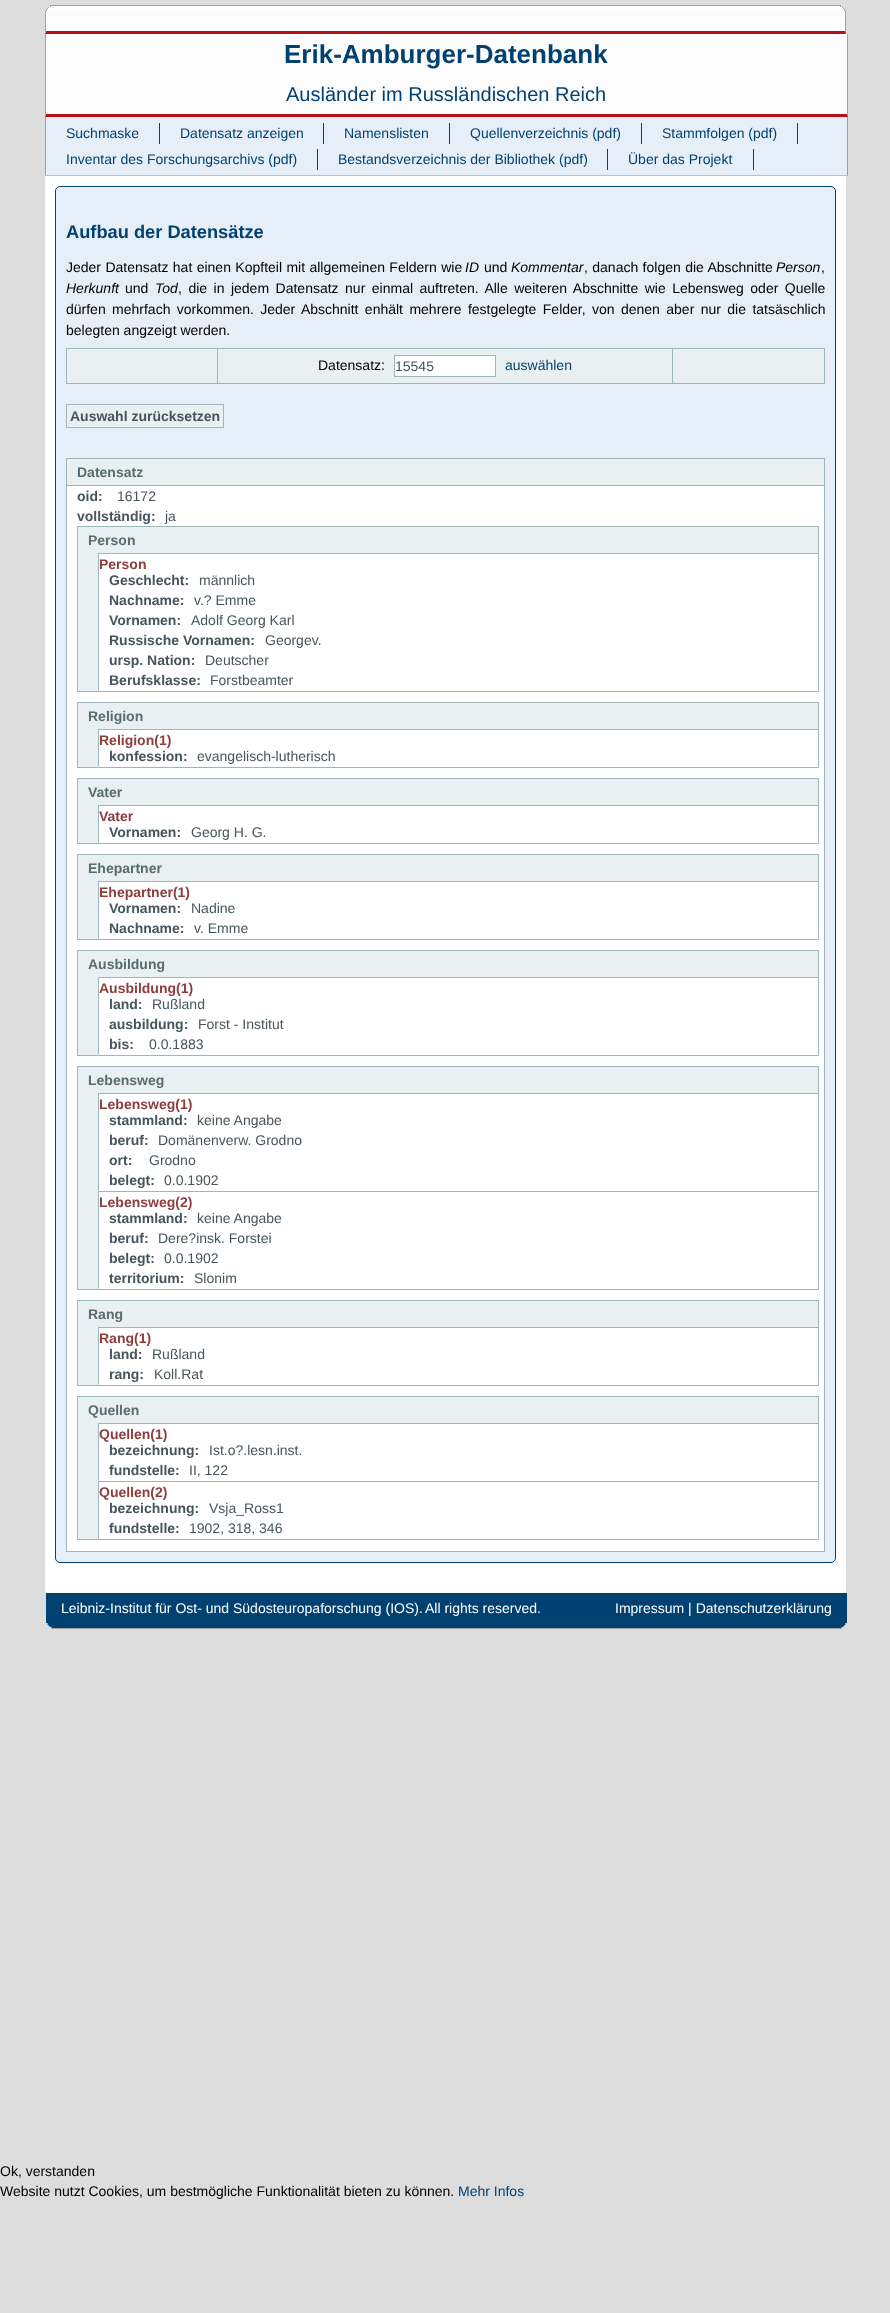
<svg xmlns="http://www.w3.org/2000/svg" width="890" height="2313" viewBox="0 0 890 2313">
  <rect width="100%" height="100%" fill="rgb(221,221,221)"/>
  <rect x="50" y="6" width="791" height="1" fill="rgb(255,255,255)"/>
  <rect x="50" y="5" width="791" height="1" fill="rgb(161,161,161)"/>
  <rect x="840" y="5" width="1" height="2" fill="rgb(161,161,161)"/>
  <rect x="50" y="5" width="1" height="2" fill="rgb(161,161,161)"/>
  <rect x="48" y="7" width="795" height="1" fill="rgb(255,255,255)"/>
  <rect x="842" y="7" width="1" height="1" fill="rgb(161,161,161)"/>
  <rect x="48" y="7" width="1" height="1" fill="rgb(161,161,161)"/>
  <rect x="47" y="8" width="797" height="1" fill="rgb(255,255,255)"/>
  <rect x="843" y="8" width="1" height="1" fill="rgb(161,161,161)"/>
  <rect x="47" y="8" width="1" height="1" fill="rgb(161,161,161)"/>
  <rect x="46" y="9" width="799" height="2" fill="rgb(255,255,255)"/>
  <rect x="844" y="9" width="1" height="2" fill="rgb(161,161,161)"/>
  <rect x="46" y="9" width="1" height="2" fill="rgb(161,161,161)"/>
  <rect x="45" y="11" width="801" height="23" fill="rgb(252,252,252)"/>
  <path d="M846 11V34L845 31V11Z" fill="rgb(161,161,161)"/>
  <path d="M846 34H45L46 31H845Z" fill="rgb(182,16,29)"/>
  <path d="M45 34V11H46V31Z" fill="rgb(161,161,161)"/>
  <rect x="45" y="34" width="803" height="83" fill="rgb(252,252,252)"/>
  <path d="M848 34V117L847 114V34Z" fill="rgb(161,161,161)"/>
  <path d="M848 117H45L46 114H847Z" fill="rgb(182,16,29)"/>
  <path d="M45 117V34H46V114Z" fill="rgb(161,161,161)"/>
  <text x="284" y="63" font-family="Liberation Sans" font-size="26" font-weight="bold" fill="rgb(0,65,113)">Erik-Amburger-Datenbank</text>
  <text x="286" y="101" font-family="Liberation Sans" font-size="20" fill="rgb(0,65,113)">Ausländer im Russländischen Reich</text>
  <rect x="45" y="117" width="803" height="59" fill="rgb(230,238,248)"/>
  <path d="M848 117V176L847 175V117Z" fill="rgb(161,161,161)"/>
  <path d="M848 176H45L46 175H847Z" fill="rgba(0,0,0,0.2)"/>
  <path d="M45 176V117H46V175Z" fill="rgb(161,161,161)"/>
  <rect x="159" y="123" width="1" height="21" fill="rgb(0,65,113)"/>
  <text x="66" y="138" font-family="Liberation Sans" font-size="14" fill="rgb(0,65,113)">Suchmaske</text>
  <rect x="323" y="123" width="1" height="21" fill="rgb(0,65,113)"/>
  <text x="180" y="138" font-family="Liberation Sans" font-size="14" fill="rgb(0,65,113)">Datensatz anzeigen</text>
  <rect x="449" y="123" width="1" height="21" fill="rgb(0,65,113)"/>
  <text x="344" y="138" font-family="Liberation Sans" font-size="14" fill="rgb(0,65,113)">Namenslisten</text>
  <rect x="641" y="123" width="1" height="21" fill="rgb(0,65,113)"/>
  <text x="470" y="138" font-family="Liberation Sans" font-size="14" fill="rgb(0,65,113)">Quellenverzeichnis (pdf)</text>
  <rect x="797" y="123" width="1" height="21" fill="rgb(0,65,113)"/>
  <text x="662" y="138" font-family="Liberation Sans" font-size="14" fill="rgb(0,65,113)">Stammfolgen (pdf)</text>
  <rect x="317" y="149" width="1" height="21" fill="rgb(0,65,113)"/>
  <text x="66" y="164" font-family="Liberation Sans" font-size="14" fill="rgb(0,65,113)">Inventar des Forschungsarchivs (pdf)</text>
  <rect x="607" y="149" width="1" height="21" fill="rgb(0,65,113)"/>
  <text x="338" y="164" font-family="Liberation Sans" font-size="14" fill="rgb(0,65,113)">Bestandsverzeichnis der Bibliothek (pdf)</text>
  <rect x="753" y="149" width="1" height="21" fill="rgb(0,65,113)"/>
  <text x="628" y="164" font-family="Liberation Sans" font-size="14" fill="rgb(0,65,113)">Über das Projekt</text>
  <rect x="45" y="176" width="801" height="1417" fill="rgb(255,255,255)"/>
  <rect x="55.5" y="186.5" width="780" height="1376" rx="4.5" fill="rgb(230,238,248)" stroke="rgb(0,65,113)"/>
  <text x="66" y="238" font-family="Liberation Sans" font-size="18.25" font-weight="bold" fill="rgb(0,65,113)">Aufbau der Datensätze</text>
  <text x="66" y="272" word-spacing="0.5" font-family="Liberation Sans" font-size="14" fill="rgb(0,0,0)">Jeder Datensatz hat einen Kopfteil mit allgemeinen Feldern wie</text>
  <text x="465" y="272" font-family="Liberation Sans" font-size="14" font-style="italic" fill="rgb(0,0,0)">ID</text>
  <text x="484" y="272" font-family="Liberation Sans" font-size="14" fill="rgb(0,0,0)">und</text>
  <text x="511" y="272" font-family="Liberation Sans" font-size="14" font-style="italic" fill="rgb(0,0,0)">Kommentar</text>
  <text x="584" y="272" word-spacing="0.5" font-family="Liberation Sans" font-size="14" fill="rgb(0,0,0)">, danach folgen die Abschnitte</text>
  <text x="776" y="272" font-family="Liberation Sans" font-size="14" font-style="italic" fill="rgb(0,0,0)">Person</text>
  <text x="821" y="272" font-family="Liberation Sans" font-size="14" fill="rgb(0,0,0)">,</text>
  <text x="66" y="293" font-family="Liberation Sans" font-size="14" font-style="italic" fill="rgb(0,0,0)">Herkunft</text>
  <text x="125" y="293" font-family="Liberation Sans" font-size="14" fill="rgb(0,0,0)">und</text>
  <text x="155" y="293" font-family="Liberation Sans" font-size="14" font-style="italic" fill="rgb(0,0,0)">Tod</text>
  <g font-family="Liberation Sans" font-size="14" fill="rgb(0,0,0)">
    <text x="178" y="293" word-spacing="2.6">, die in jedem Datensatz nur einmal auftreten. Alle weiteren Abschnitte wie Lebensweg oder Quelle</text>
    <text>
      <tspan x="66" y="314" word-spacing="2.5">dürfen mehrfach vorkommen. Jeder Abschnitt enhält mehrere festgelegte Felder, von denen aber nur die tatsäschlich</tspan>
      <tspan x="66" y="335">belegten angzeigt werden.</tspan>
    </text>
  </g>
  <rect x="66" y="348" width="759" height="1" fill="rgb(157,182,186)"/>
  <rect x="824" y="348" width="1" height="36" fill="rgb(157,182,186)"/>
  <rect x="66" y="383" width="759" height="1" fill="rgb(157,182,186)"/>
  <rect x="66" y="348" width="1" height="36" fill="rgb(157,182,186)"/>
  <rect x="67" y="349" width="150" height="34" fill="rgb(232,240,242)"/>
  <rect x="218" y="349" width="454" height="34" fill="rgb(232,240,242)"/>
  <rect x="217" y="348" width="1" height="36" fill="rgb(157,182,186)"/>
  <text x="318" y="370" font-family="Liberation Sans" font-size="14" fill="rgb(0,0,0)">Datensatz:</text>
  <rect x="394.5" y="355.5" width="101" height="21" fill="rgb(255,255,255)" stroke="rgb(157,182,186)"/>
  <text x="395" y="371" font-family="Liberation Sans" font-size="14" fill="rgb(70,85,91)">15545</text>
  <text x="505" y="370" font-family="Liberation Sans" font-size="14" fill="rgb(0,65,113)">auswählen</text>
  <rect x="673" y="349" width="151" height="34" fill="rgb(232,240,242)"/>
  <rect x="672" y="348" width="1" height="36" fill="rgb(157,182,186)"/>
  <rect x="66.5" y="404.5" width="157" height="23" fill="rgb(232,240,242)" stroke="rgb(157,182,186)"/>
  <text x="70" y="421" font-family="Liberation Sans" font-size="14" font-weight="bold" fill="rgb(70,85,91)">Auswahl zurücksetzen</text>
  <rect x="67" y="459" width="757" height="26" fill="rgb(232,240,242)"/>
  <rect x="66.5" y="458.5" width="758" height="1093" fill="none" stroke="rgb(157,182,186)"/>
  <text x="77" y="477" font-family="Liberation Sans" font-size="14" font-weight="bold" fill="rgb(89,108,114)">Datensatz</text>
  <rect x="67" y="486" width="757" height="1065" fill="rgb(255,255,255)"/>
  <rect x="67" y="485" width="757" height="1" fill="rgb(157,182,186)"/>
  <text x="77" y="501" font-family="Liberation Sans" font-size="14" font-weight="bold" fill="rgb(70,85,91)">oid:</text>
  <text x="117" y="501" font-family="Liberation Sans" font-size="14" fill="rgb(70,85,91)">16172</text>
  <text x="77" y="521" font-family="Liberation Sans" font-size="14" font-weight="bold" fill="rgb(70,85,91)">vollständig:</text>
  <text x="165" y="521" font-family="Liberation Sans" font-size="14" fill="rgb(70,85,91)">ja</text>
  <rect x="77.5" y="526.5" width="741" height="165" fill="rgb(232,240,242)" stroke="rgb(157,182,186)"/>
  <text x="88" y="545" font-family="Liberation Sans" font-size="14" font-weight="bold" fill="rgb(89,108,114)">Person</text>
  <rect x="98" y="554" width="720" height="137" fill="rgb(255,255,255)"/>
  <rect x="98" y="553" width="720" height="1" fill="rgb(157,182,186)"/>
  <path d="M98 691V553L99 554V690Z" fill="rgb(157,182,186)"/>
  <text x="99" y="569" font-family="Liberation Sans" font-size="14" font-weight="bold" fill="rgb(141,61,60)">Person</text>
  <text x="109" y="585" font-family="Liberation Sans" font-size="14" font-weight="bold" fill="rgb(70,85,91)">Geschlecht:</text>
  <text x="199" y="585" font-family="Liberation Sans" font-size="14" fill="rgb(70,85,91)">männlich</text>
  <text x="109" y="605" font-family="Liberation Sans" font-size="14" font-weight="bold" fill="rgb(70,85,91)">Nachname:</text>
  <text x="194" y="605" font-family="Liberation Sans" font-size="14" fill="rgb(70,85,91)">v.? Emme</text>
  <text x="109" y="625" font-family="Liberation Sans" font-size="14" font-weight="bold" fill="rgb(70,85,91)">Vornamen:</text>
  <text x="191" y="625" font-family="Liberation Sans" font-size="14" fill="rgb(70,85,91)">Adolf Georg Karl</text>
  <text x="109" y="645" font-family="Liberation Sans" font-size="14" font-weight="bold" fill="rgb(70,85,91)">Russische Vornamen:</text>
  <text x="265" y="645" font-family="Liberation Sans" font-size="14" fill="rgb(70,85,91)">Georgev.</text>
  <text x="109" y="665" font-family="Liberation Sans" font-size="14" font-weight="bold" fill="rgb(70,85,91)">ursp. Nation:</text>
  <text x="205" y="665" font-family="Liberation Sans" font-size="14" fill="rgb(70,85,91)">Deutscher</text>
  <text x="109" y="685" font-family="Liberation Sans" font-size="14" font-weight="bold" fill="rgb(70,85,91)">Berufsklasse:</text>
  <text x="210" y="685" font-family="Liberation Sans" font-size="14" fill="rgb(70,85,91)">Forstbeamter</text>
  <rect x="77.5" y="702.5" width="741" height="65" fill="rgb(232,240,242)" stroke="rgb(157,182,186)"/>
  <text x="88" y="721" font-family="Liberation Sans" font-size="14" font-weight="bold" fill="rgb(89,108,114)">Religion</text>
  <rect x="98" y="730" width="720" height="37" fill="rgb(255,255,255)"/>
  <rect x="98" y="729" width="720" height="1" fill="rgb(157,182,186)"/>
  <path d="M98 767V729L99 730V766Z" fill="rgb(157,182,186)"/>
  <text x="99" y="745" font-family="Liberation Sans" font-size="14" font-weight="bold" fill="rgb(141,61,60)">Religion(1)</text>
  <text x="109" y="761" font-family="Liberation Sans" font-size="14" font-weight="bold" fill="rgb(70,85,91)">konfession:</text>
  <text x="197" y="761" font-family="Liberation Sans" font-size="14" fill="rgb(70,85,91)">evangelisch-lutherisch</text>
  <rect x="77.5" y="778.5" width="741" height="65" fill="rgb(232,240,242)" stroke="rgb(157,182,186)"/>
  <text x="88" y="797" font-family="Liberation Sans" font-size="14" font-weight="bold" fill="rgb(89,108,114)">Vater</text>
  <rect x="98" y="806" width="720" height="37" fill="rgb(255,255,255)"/>
  <rect x="98" y="805" width="720" height="1" fill="rgb(157,182,186)"/>
  <path d="M98 843V805L99 806V842Z" fill="rgb(157,182,186)"/>
  <text x="99" y="821" font-family="Liberation Sans" font-size="14" font-weight="bold" fill="rgb(141,61,60)">Vater</text>
  <text x="109" y="837" font-family="Liberation Sans" font-size="14" font-weight="bold" fill="rgb(70,85,91)">Vornamen:</text>
  <text x="191" y="837" font-family="Liberation Sans" font-size="14" fill="rgb(70,85,91)">Georg H. G.</text>
  <rect x="77.5" y="854.5" width="741" height="85" fill="rgb(232,240,242)" stroke="rgb(157,182,186)"/>
  <text x="88" y="873" font-family="Liberation Sans" font-size="14" font-weight="bold" fill="rgb(89,108,114)">Ehepartner</text>
  <rect x="98" y="882" width="720" height="57" fill="rgb(255,255,255)"/>
  <rect x="98" y="881" width="720" height="1" fill="rgb(157,182,186)"/>
  <path d="M98 939V881L99 882V938Z" fill="rgb(157,182,186)"/>
  <text x="99" y="897" font-family="Liberation Sans" font-size="14" font-weight="bold" fill="rgb(141,61,60)">Ehepartner(1)</text>
  <text x="109" y="913" font-family="Liberation Sans" font-size="14" font-weight="bold" fill="rgb(70,85,91)">Vornamen:</text>
  <text x="191" y="913" font-family="Liberation Sans" font-size="14" fill="rgb(70,85,91)">Nadine</text>
  <text x="109" y="933" font-family="Liberation Sans" font-size="14" font-weight="bold" fill="rgb(70,85,91)">Nachname:</text>
  <text x="194" y="933" font-family="Liberation Sans" font-size="14" fill="rgb(70,85,91)">v. Emme</text>
  <rect x="77.5" y="950.5" width="741" height="105" fill="rgb(232,240,242)" stroke="rgb(157,182,186)"/>
  <text x="88" y="969" font-family="Liberation Sans" font-size="14" font-weight="bold" fill="rgb(89,108,114)">Ausbildung</text>
  <rect x="98" y="978" width="720" height="77" fill="rgb(255,255,255)"/>
  <rect x="98" y="977" width="720" height="1" fill="rgb(157,182,186)"/>
  <path d="M98 1055V977L99 978V1054Z" fill="rgb(157,182,186)"/>
  <text x="99" y="993" font-family="Liberation Sans" font-size="14" font-weight="bold" fill="rgb(141,61,60)">Ausbildung(1)</text>
  <text x="109" y="1009" font-family="Liberation Sans" font-size="14" font-weight="bold" fill="rgb(70,85,91)">land:</text>
  <text x="152" y="1009" font-family="Liberation Sans" font-size="14" fill="rgb(70,85,91)">Rußland</text>
  <text x="109" y="1029" font-family="Liberation Sans" font-size="14" font-weight="bold" fill="rgb(70,85,91)">ausbildung:</text>
  <text x="198" y="1029" font-family="Liberation Sans" font-size="14" fill="rgb(70,85,91)">Forst - Institut</text>
  <text x="109" y="1049" font-family="Liberation Sans" font-size="14" font-weight="bold" fill="rgb(70,85,91)">bis:</text>
  <text x="149" y="1049" font-family="Liberation Sans" font-size="14" fill="rgb(70,85,91)">0.0.1883</text>
  <rect x="77.5" y="1066.5" width="741" height="223" fill="rgb(232,240,242)" stroke="rgb(157,182,186)"/>
  <text x="88" y="1085" font-family="Liberation Sans" font-size="14" font-weight="bold" fill="rgb(89,108,114)">Lebensweg</text>
  <rect x="98" y="1094" width="720" height="97" fill="rgb(255,255,255)"/>
  <rect x="98" y="1093" width="720" height="1" fill="rgb(157,182,186)"/>
  <path d="M98 1191V1093L99 1094V1190Z" fill="rgb(157,182,186)"/>
  <text x="99" y="1109" font-family="Liberation Sans" font-size="14" font-weight="bold" fill="rgb(141,61,60)">Lebensweg(1)</text>
  <text x="109" y="1125" font-family="Liberation Sans" font-size="14" font-weight="bold" fill="rgb(70,85,91)">stammland:</text>
  <text x="197" y="1125" font-family="Liberation Sans" font-size="14" fill="rgb(70,85,91)">keine Angabe</text>
  <text x="109" y="1145" font-family="Liberation Sans" font-size="14" font-weight="bold" fill="rgb(70,85,91)">beruf:</text>
  <text x="158" y="1145" font-family="Liberation Sans" font-size="14" fill="rgb(70,85,91)">Domänenverw. Grodno</text>
  <text x="109" y="1165" font-family="Liberation Sans" font-size="14" font-weight="bold" fill="rgb(70,85,91)">ort:</text>
  <text x="149" y="1165" font-family="Liberation Sans" font-size="14" fill="rgb(70,85,91)">Grodno</text>
  <text x="109" y="1185" font-family="Liberation Sans" font-size="14" font-weight="bold" fill="rgb(70,85,91)">belegt:</text>
  <text x="164" y="1185" font-family="Liberation Sans" font-size="14" fill="rgb(70,85,91)">0.0.1902</text>
  <rect x="98" y="1192" width="720" height="97" fill="rgb(255,255,255)"/>
  <rect x="98" y="1191" width="720" height="1" fill="rgb(157,182,186)"/>
  <path d="M98 1289V1191L99 1192V1288Z" fill="rgb(157,182,186)"/>
  <text x="99" y="1207" font-family="Liberation Sans" font-size="14" font-weight="bold" fill="rgb(141,61,60)">Lebensweg(2)</text>
  <text x="109" y="1223" font-family="Liberation Sans" font-size="14" font-weight="bold" fill="rgb(70,85,91)">stammland:</text>
  <text x="197" y="1223" font-family="Liberation Sans" font-size="14" fill="rgb(70,85,91)">keine Angabe</text>
  <text x="109" y="1243" font-family="Liberation Sans" font-size="14" font-weight="bold" fill="rgb(70,85,91)">beruf:</text>
  <text x="158" y="1243" font-family="Liberation Sans" font-size="14" fill="rgb(70,85,91)">Dere?insk. Forstei</text>
  <text x="109" y="1263" font-family="Liberation Sans" font-size="14" font-weight="bold" fill="rgb(70,85,91)">belegt:</text>
  <text x="164" y="1263" font-family="Liberation Sans" font-size="14" fill="rgb(70,85,91)">0.0.1902</text>
  <text x="109" y="1283" font-family="Liberation Sans" font-size="14" font-weight="bold" fill="rgb(70,85,91)">territorium:</text>
  <text x="194" y="1283" font-family="Liberation Sans" font-size="14" fill="rgb(70,85,91)">Slonim</text>
  <rect x="77.5" y="1300.5" width="741" height="85" fill="rgb(232,240,242)" stroke="rgb(157,182,186)"/>
  <text x="88" y="1319" font-family="Liberation Sans" font-size="14" font-weight="bold" fill="rgb(89,108,114)">Rang</text>
  <rect x="98" y="1328" width="720" height="57" fill="rgb(255,255,255)"/>
  <rect x="98" y="1327" width="720" height="1" fill="rgb(157,182,186)"/>
  <path d="M98 1385V1327L99 1328V1384Z" fill="rgb(157,182,186)"/>
  <text x="99" y="1343" font-family="Liberation Sans" font-size="14" font-weight="bold" fill="rgb(141,61,60)">Rang(1)</text>
  <text x="109" y="1359" font-family="Liberation Sans" font-size="14" font-weight="bold" fill="rgb(70,85,91)">land:</text>
  <text x="152" y="1359" font-family="Liberation Sans" font-size="14" fill="rgb(70,85,91)">Rußland</text>
  <text x="109" y="1379" font-family="Liberation Sans" font-size="14" font-weight="bold" fill="rgb(70,85,91)">rang:</text>
  <text x="154" y="1379" font-family="Liberation Sans" font-size="14" fill="rgb(70,85,91)">Koll.Rat</text>
  <rect x="77.5" y="1396.5" width="741" height="143" fill="rgb(232,240,242)" stroke="rgb(157,182,186)"/>
  <text x="88" y="1415" font-family="Liberation Sans" font-size="14" font-weight="bold" fill="rgb(89,108,114)">Quellen</text>
  <rect x="98" y="1424" width="720" height="57" fill="rgb(255,255,255)"/>
  <rect x="98" y="1423" width="720" height="1" fill="rgb(157,182,186)"/>
  <path d="M98 1481V1423L99 1424V1480Z" fill="rgb(157,182,186)"/>
  <text x="99" y="1439" font-family="Liberation Sans" font-size="14" font-weight="bold" fill="rgb(141,61,60)">Quellen(1)</text>
  <text x="109" y="1455" font-family="Liberation Sans" font-size="14" font-weight="bold" fill="rgb(70,85,91)">bezeichnung:</text>
  <text x="209" y="1455" font-family="Liberation Sans" font-size="14" fill="rgb(70,85,91)">Ist.o?.lesn.inst.</text>
  <text x="109" y="1475" font-family="Liberation Sans" font-size="14" font-weight="bold" fill="rgb(70,85,91)">fundstelle:</text>
  <text x="189" y="1475" font-family="Liberation Sans" font-size="14" fill="rgb(70,85,91)">II, 122</text>
  <rect x="98" y="1482" width="720" height="57" fill="rgb(255,255,255)"/>
  <rect x="98" y="1481" width="720" height="1" fill="rgb(157,182,186)"/>
  <path d="M98 1539V1481L99 1482V1538Z" fill="rgb(157,182,186)"/>
  <text x="99" y="1497" font-family="Liberation Sans" font-size="14" font-weight="bold" fill="rgb(141,61,60)">Quellen(2)</text>
  <text x="109" y="1513" font-family="Liberation Sans" font-size="14" font-weight="bold" fill="rgb(70,85,91)">bezeichnung:</text>
  <text x="209" y="1513" font-family="Liberation Sans" font-size="14" fill="rgb(70,85,91)">Vsja_Ross1</text>
  <text x="109" y="1533" font-family="Liberation Sans" font-size="14" font-weight="bold" fill="rgb(70,85,91)">fundstelle:</text>
  <text x="189" y="1533" font-family="Liberation Sans" font-size="14" fill="rgb(70,85,91)">1902, 318, 346</text>
  <rect x="46" y="1593" width="801" height="30" fill="rgb(0,65,113)"/>
  <g font-family="Liberation Sans" font-size="14" fill="rgb(255,255,255)">
    <text x="61" y="1613">Leibniz-Institut für Ost- und Südosteuropaforschung (IOS).</text>
    <text x="425" y="1613">All rights reserved.</text>
    <text x="615" y="1613">Impressum | Datenschutzerklärung</text>
  </g>
  <rect x="47" y="1623" width="799" height="2" fill="rgb(0,65,113)"/>
  <rect x="845" y="1623" width="1" height="2" fill="rgb(161,161,161)"/>
  <rect x="47" y="1623" width="1" height="2" fill="rgb(161,161,161)"/>
  <rect x="48" y="1625" width="797" height="1" fill="rgb(0,65,113)"/>
  <rect x="844" y="1625" width="1" height="1" fill="rgb(161,161,161)"/>
  <rect x="48" y="1625" width="1" height="1" fill="rgb(161,161,161)"/>
  <rect x="49" y="1626" width="795" height="1" fill="rgb(0,65,113)"/>
  <rect x="843" y="1626" width="1" height="1" fill="rgb(161,161,161)"/>
  <rect x="49" y="1626" width="1" height="1" fill="rgb(161,161,161)"/>
  <rect x="51" y="1627" width="791" height="1" fill="rgb(0,65,113)"/>
  <rect x="841" y="1627" width="1" height="2" fill="rgb(161,161,161)"/>
  <rect x="51" y="1628" width="791" height="1" fill="rgb(161,161,161)"/>
  <rect x="51" y="1627" width="1" height="2" fill="rgb(161,161,161)"/>
  <g font-family="Liberation Sans" font-size="14" fill="rgb(0,0,0)">
    <text>
      <tspan x="0" y="2176">Ok, verstanden</tspan>
      <tspan x="0" y="2196">Website nutzt Cookies, um bestmögliche Funktionalität bieten zu können.</tspan>
    </text>
  </g>
  <text x="458" y="2196" font-family="Liberation Sans" font-size="14" fill="rgb(0,65,113)">Mehr Infos</text>
</svg>
